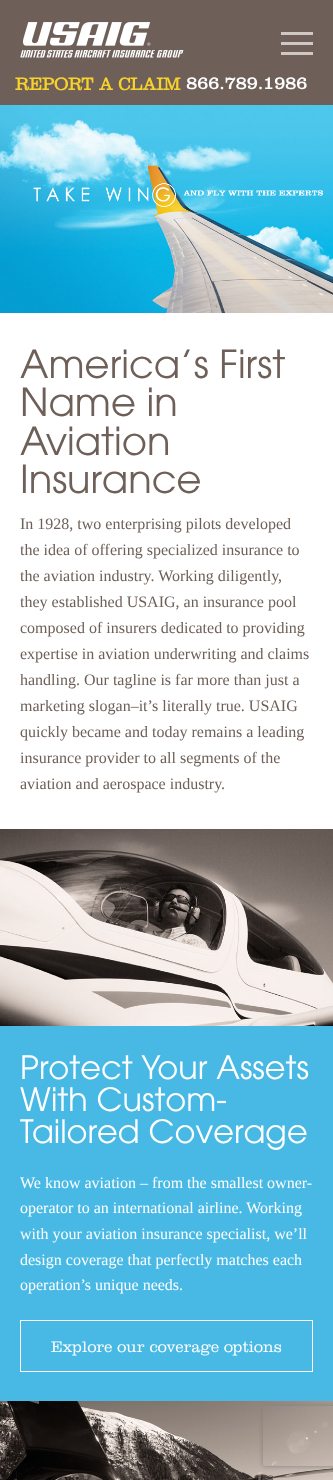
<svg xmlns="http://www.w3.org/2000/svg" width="333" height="1480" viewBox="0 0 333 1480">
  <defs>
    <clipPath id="clip1"><path d="M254 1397H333V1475H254ZM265 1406H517C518 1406 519 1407 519 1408V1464C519 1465 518 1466 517 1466H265C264 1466 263 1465 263 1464V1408C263 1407 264 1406 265 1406Z" clip-rule="evenodd"/></clipPath>
  </defs>
  <rect width="100%" height="100%" fill="rgb(255,255,255)"/>
  <rect x="0" y="0" width="333" height="105" fill="rgb(110,96,89)"/>
  <image x="20" y="22" width="164" height="36" href="pic1.png"/>
  <rect x="281" y="32" width="32" height="3" fill="rgb(207,200,196)"/>
  <rect x="281" y="42" width="32" height="3" fill="rgb(207,200,196)"/>
  <rect x="281" y="52" width="32" height="3" fill="rgb(207,200,196)"/>
  <text x="15" y="90" font-family="'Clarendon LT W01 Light'" font-size="18" font-weight="bold" fill="rgb(247,209,44)">REPORT A CLAIM</text>
  <text x="186" y="89" font-family="'Clarendon LT W01 Light'" font-size="18" font-weight="bold" fill="rgb(255,255,255)">866.789.1986</text>
  <image x="0" y="105" width="333" height="208" href="pic2.png"/>
  <g font-family="'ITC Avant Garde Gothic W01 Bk'" font-size="38.5" fill="rgb(110,96,89)">
    <text>
      <tspan x="20" y="378">America’s First</tspan>
      <tspan x="20" y="416">Name in</tspan>
      <tspan x="20" y="455">Aviation</tspan>
      <tspan x="20" y="493">Insurance</tspan>
    </text>
  </g>
  <g font-family="Liberation Serif" font-size="16" fill="rgb(110,96,89)">
    <text>
      <tspan x="20" y="529">In 1928, two enterprising pilots developed</tspan>
      <tspan x="20" y="555">the idea of offering specialized insurance to</tspan>
      <tspan x="20" y="581">the aviation industry. Working diligently,</tspan>
      <tspan x="20" y="607">they established USAIG, an insurance pool</tspan>
      <tspan x="20" y="633">composed of insurers dedicated to providing</tspan>
      <tspan x="20" y="659">expertise in aviation underwriting and claims</tspan>
      <tspan x="20" y="685">handling. Our tagline is far more than just a</tspan>
      <tspan x="20" y="711">marketing slogan–it’s literally true. USAIG</tspan>
      <tspan x="20" y="737">quickly became and today remains a leading</tspan>
      <tspan x="20" y="763">insurance provider to all segments of the</tspan>
      <tspan x="20" y="789">aviation and aerospace industry.</tspan>
    </text>
  </g>
  <image x="0" y="829" width="333" height="197" href="pic3.png"/>
  <rect x="0" y="1026" width="333" height="375" fill="rgb(72,185,229)"/>
  <g font-family="'ITC Avant Garde Gothic W01 Bk'" font-size="32" fill="rgb(255,255,255)">
    <text>
      <tspan x="20" y="1079">Protect Your Assets</tspan>
      <tspan x="20" y="1111">With Custom-</tspan>
      <tspan x="20" y="1143">Tailored Coverage</tspan>
    </text>
  </g>
  <g font-family="Liberation Serif" font-size="16" fill="rgb(255,255,255)">
    <text>
      <tspan x="20" y="1188">We know aviation – from the smallest owner-</tspan>
      <tspan x="20" y="1213">operator to an international airline. Working</tspan>
      <tspan x="20" y="1239">with your aviation insurance specialist, we’ll</tspan>
      <tspan x="20" y="1265">design coverage that perfectly matches each</tspan>
      <tspan x="20" y="1290">operation’s unique needs.</tspan>
    </text>
  </g>
  <rect x="20.5" y="1320.5" width="292" height="51" fill="none" stroke="rgb(255,255,255)"/>
  <text x="51" y="1352" font-family="'Clarendon LT W01 Light'" font-size="16" font-weight="300" fill="rgb(255,255,255)">Explore our coverage options</text>
  <image x="0" y="1401" width="333" height="79" href="pic4.png"/>
  <g clip-path="url(#clip1)">
    <rect x="263" y="1406" width="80" height="60" rx="2" fill="rgb(128,128,128)" filter="blur(2.5px)"/>
  </g>
</svg>
